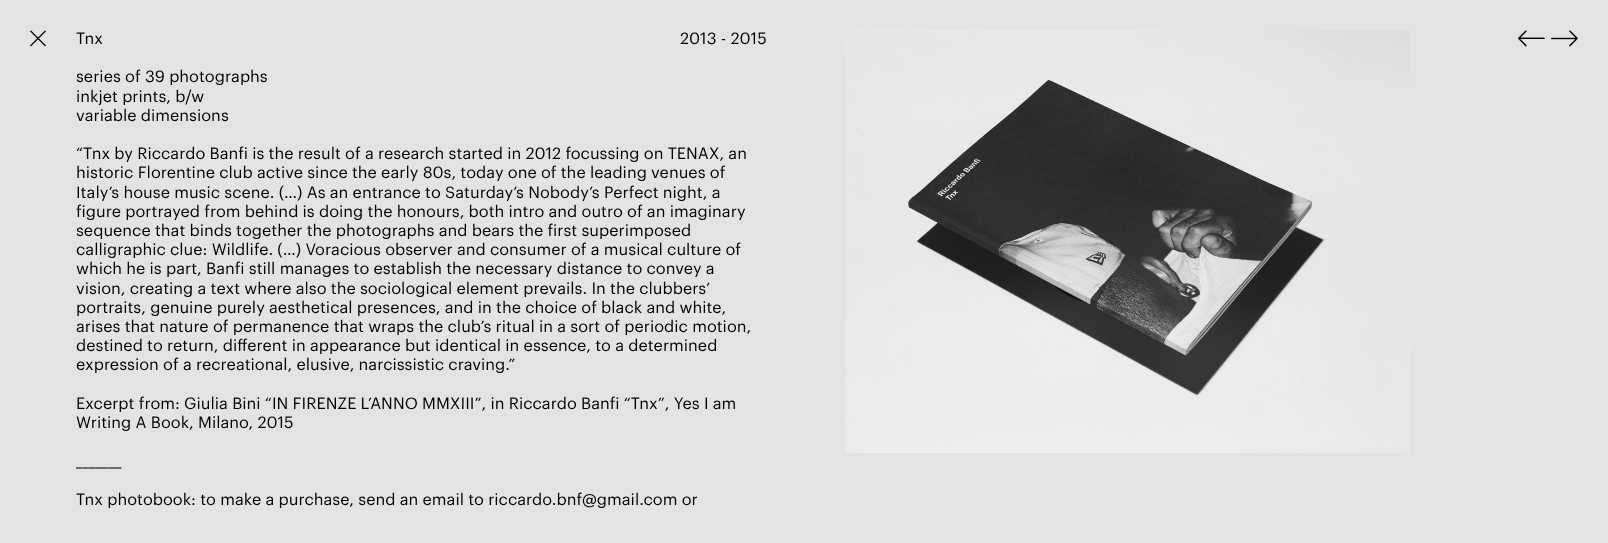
<svg xmlns="http://www.w3.org/2000/svg" width="1608" height="543" viewBox="0 0 1608 543">
  <rect width="100%" height="100%" fill="rgb(226,227,228)"/>
  <image x="30" y="30" width="16" height="17" href="pic1.png"/>
  <g font-family="Graphik" font-size="16" fill="rgb(0,0,0)">
    <text x="76" y="44">Tnx</text>
    <text x="680" y="44">2013 - 2015</text>
    <text>
      <tspan x="76" y="82">series of 39 photographs</tspan>
      <tspan x="76" y="102">inkjet prints, b/w</tspan>
      <tspan x="76" y="121">variable dimensions</tspan>
    </text>
    <text>
      <tspan x="76" y="159">“Tnx by Riccardo Banfi is the result of a research started in 2012 focussing on TENAX, an</tspan>
      <tspan x="76" y="178">historic Florentine club active since the early 80s, today one of the leading venues of</tspan>
      <tspan x="76" y="198">Italy’s house music scene. (…) As an entrance to Saturday’s Nobody’s Perfect night, a</tspan>
      <tspan x="76" y="217">figure portrayed from behind is doing the honours, both intro and outro of an imaginary</tspan>
      <tspan x="76" y="236">sequence that binds together the photographs and bears the first superimposed</tspan>
      <tspan x="76" y="255">calligraphic clue: Wildlife. (…) Voracious observer and consumer of a musical culture of</tspan>
      <tspan x="76" y="274">which he is part, Banfi still manages to establish the necessary distance to convey a</tspan>
      <tspan x="76" y="294">vision, creating a text where also the sociological element prevails. In the clubbers’</tspan>
      <tspan x="76" y="313">portraits, genuine purely aesthetical presences, and in the choice of black and white,</tspan>
      <tspan x="76" y="332">arises that nature of permanence that wraps the club’s ritual in a sort of periodic motion,</tspan>
      <tspan x="76" y="351">destined to return, different in appearance but identical in essence, to a determined</tspan>
      <tspan x="76" y="370">expression of a recreational, elusive, narcissistic craving.”</tspan>
    </text>
    <text>
      <tspan x="76" y="409">Excerpt from: Giulia Bini “IN FIRENZE L’ANNO MMXIII”, in Riccardo Banfi “Tnx”, Yes I am</tspan>
      <tspan x="76" y="428">Writing A Book, Milano, 2015</tspan>
    </text>
    <text x="76" y="466">_______</text>
    <text x="76" y="505">Tnx photobook: to make a purchase, send an email to riccardo.bnf@gmail.com or</text>
  </g>
  <image x="846" y="30" width="564" height="423" href="pic2.png"/>
  <image x="1518" y="30" width="27" height="17" href="pic3.png"/>
  <image x="1551" y="30" width="27" height="17" href="pic4.png"/>
</svg>
